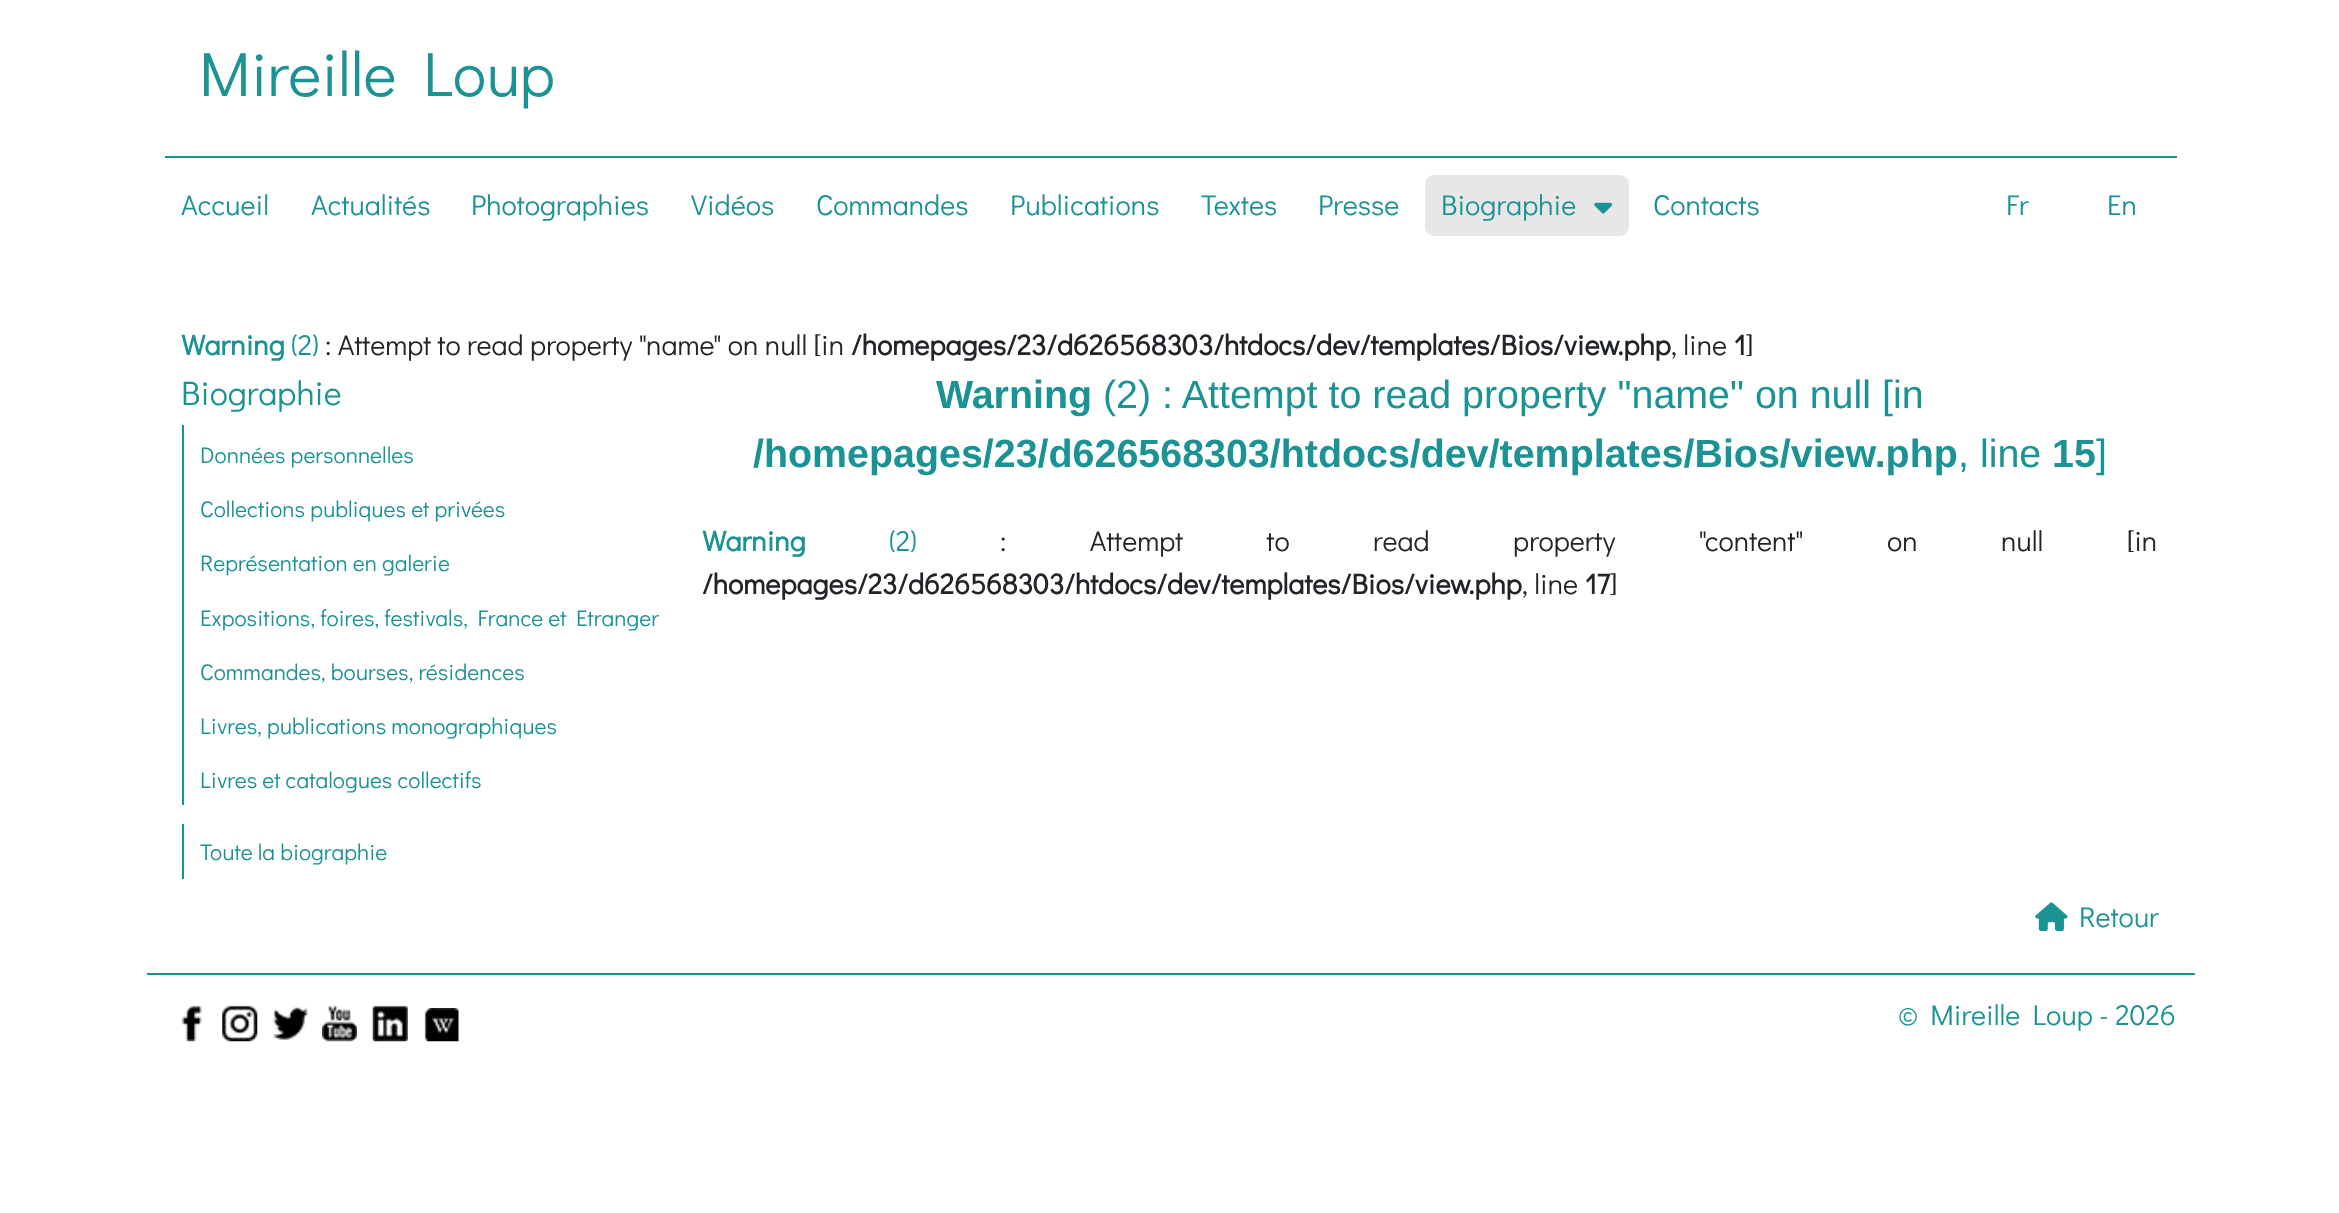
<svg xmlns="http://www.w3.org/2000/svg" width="2339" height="1213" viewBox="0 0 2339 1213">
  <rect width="100%" height="100%" fill="rgb(255,255,255)"/>
  <rect x="165" y="156" width="2012" height="2" fill="rgb(27,146,147)"/>
  <text x="199" y="96" font-family="Didact Gothic" font-size="62.75" fill="rgb(27,146,147)">Mireille Loup</text>
  <g font-family="Didact Gothic" font-size="28.65" fill="rgb(27,146,147)">
    <text x="181" y="215">Accueil</text>
    <text x="311" y="215">Actualités</text>
    <text x="471" y="215">Photographies</text>
    <text x="691" y="215">Vidéos</text>
    <text x="816" y="215">Commandes</text>
    <text x="1010" y="215">Publications</text>
    <text x="1201" y="215">Textes</text>
    <text x="1318" y="215">Presse</text>
  </g>
  <rect x="1425" y="175" width="204" height="61" rx="9" fill="rgb(231,231,231)"/>
  <text x="1441" y="215" font-family="Didact Gothic" font-size="28.65" fill="rgb(27,146,147)">Biographie</text>
  <image x="1594" y="202" width="19" height="12" href="pic1.png"/>
  <g font-family="Didact Gothic" font-size="28.65" fill="rgb(27,146,147)">
    <text x="1653" y="215">Contacts</text>
    <text x="2006" y="215">Fr</text>
    <text x="2107" y="215">En</text>
  </g>
  <text x="181" y="355" font-family="Didact Gothic" font-size="28.65" font-weight="bold" fill="rgb(27,146,147)">Warning</text>
  <text x="291" y="355" font-family="Didact Gothic" font-size="28.65" fill="rgb(27,146,147)">(2)</text>
  <text x="325" y="355" font-family="Didact Gothic" font-size="28.65" fill="rgb(33,37,41)">: Attempt to read property "name" on null [in</text>
  <text x="851" y="355" font-family="Didact Gothic" font-size="28.65" font-weight="bold" fill="rgb(33,37,41)">/homepages/23/d626568303/htdocs/dev/templates/Bios/view.php</text>
  <text x="1671" y="355" font-family="Didact Gothic" font-size="28.65" fill="rgb(33,37,41)">, line</text>
  <text x="1734" y="355" font-family="Didact Gothic" font-size="28.65" font-weight="bold" fill="rgb(33,37,41)">1</text>
  <text x="1746" y="355" font-family="Didact Gothic" font-size="28.65" fill="rgb(33,37,41)">]</text>
  <text x="181" y="405" font-family="Didact Gothic" font-size="34" fill="rgb(27,146,147)">Biographie</text>
  <rect x="182" y="425" width="2" height="380" fill="rgb(27,146,147)"/>
  <g font-family="Didact Gothic" font-size="22.75" fill="rgb(27,146,147)">
    <text x="200" y="463">Données personnelles</text>
    <text x="200" y="517">Collections publiques et privées</text>
    <text x="200" y="571">Représentation en galerie</text>
    <text x="200" y="626">Expositions, foires, festivals, France et Etranger</text>
    <text x="200" y="680">Commandes, bourses, résidences</text>
    <text x="200" y="734">Livres, publications monographiques</text>
    <text x="200" y="788">Livres et catalogues collectifs</text>
  </g>
  <rect x="182" y="824" width="2" height="55" fill="rgb(27,146,147)"/>
  <text x="200" y="860" font-family="Didact Gothic" font-size="22.75" fill="rgb(27,146,147)">Toute la biographie</text>
  <text x="936" y="408" font-family="Liberation Sans" font-size="39.4" font-weight="bold" fill="rgb(27,146,147)">Warning</text>
  <text x="1103" y="408" font-family="Liberation Sans" font-size="39.4" fill="rgb(27,146,147)">(2) : Attempt to read property "name" on null [in</text>
  <text x="753" y="467" font-family="Liberation Sans" font-size="39.4" font-weight="bold" fill="rgb(27,146,147)">/homepages/23/d626568303/htdocs/dev/templates/Bios/view.php</text>
  <text x="1958" y="467" font-family="Liberation Sans" font-size="39.4" fill="rgb(27,146,147)">, line</text>
  <text x="2052" y="467" font-family="Liberation Sans" font-size="39.4" font-weight="bold" fill="rgb(27,146,147)">15</text>
  <text x="2096" y="467" font-family="Liberation Sans" font-size="39.4" fill="rgb(27,146,147)">]</text>
  <text x="702" y="551" font-family="Didact Gothic" font-size="28.65" font-weight="bold" fill="rgb(27,146,147)">Warning</text>
  <text x="889" y="551" font-family="Didact Gothic" font-size="28.65" fill="rgb(27,146,147)">(2)</text>
  <text x="1000" y="551" word-spacing="77" font-family="Didact Gothic" font-size="28.65" fill="rgb(33,37,41)">: Attempt to read property "content" on null [in</text>
  <text x="702" y="594" font-family="Didact Gothic" font-size="28.65" font-weight="bold" fill="rgb(33,37,41)">/homepages/23/d626568303/htdocs/dev/templates/Bios/view.php</text>
  <text x="1522" y="594" font-family="Didact Gothic" font-size="28.65" fill="rgb(33,37,41)">, line</text>
  <text x="1585" y="594" font-family="Didact Gothic" font-size="28.65" font-weight="bold" fill="rgb(33,37,41)">17</text>
  <text x="1610" y="594" font-family="Didact Gothic" font-size="28.65" fill="rgb(33,37,41)">]</text>
  <image x="2035" y="902" width="33" height="30" href="pic2.png"/>
  <text x="2079" y="927" font-family="Didact Gothic" font-size="28.65" fill="rgb(27,146,147)">Retour</text>
  <rect x="147" y="973" width="2048" height="2" fill="rgb(27,146,147)"/>
  <image x="181" y="1005" width="21" height="37" href="pic3.png"/>
  <image x="222" y="1005" width="36" height="37" href="pic4.png"/>
  <image x="273" y="1007" width="35" height="33" href="pic5.png"/>
  <image x="322" y="1005" width="35" height="37" href="pic6.png"/>
  <image x="372" y="1005" width="36" height="37" href="pic7.png"/>
  <image x="424" y="1008" width="35" height="34" href="pic8.png"/>
  <text x="1898" y="1025" font-family="Didact Gothic" font-size="28.65" fill="rgb(27,146,147)">© Mireille Loup - 2026</text>
</svg>
